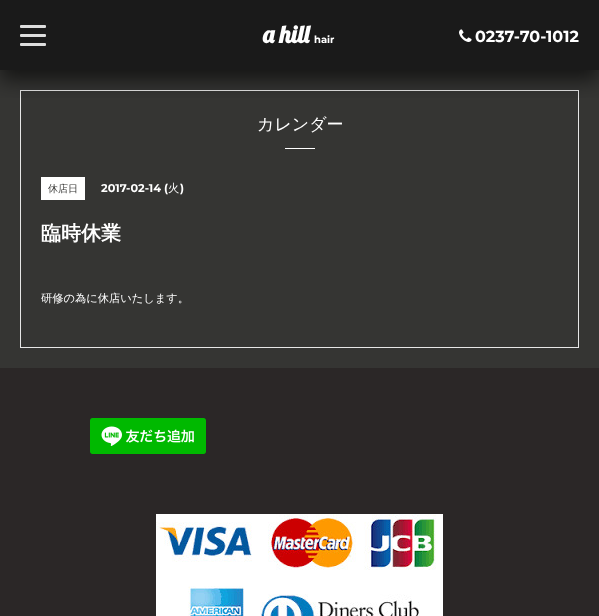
<svg xmlns="http://www.w3.org/2000/svg" width="599" height="616" viewBox="0 0 599 616">
  <defs>
    <clipPath id="clip1"><rect x="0" y="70" width="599" height="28"/></clipPath>
  </defs>
  <rect width="100%" height="100%" fill="rgb(26,26,26)"/>
  <rect x="0" y="70" width="599" height="298" fill="rgb(53,53,51)"/>
  <rect x="20.5" y="90.5" width="558" height="257" fill="none" stroke="rgb(230,230,230)"/>
  <g clip-path="url(#clip1)">
    <rect x="0" y="10" width="599" height="70" fill="rgba(0,0,0,0.6)" filter="blur(10px)"/>
  </g>
  <rect x="20" y="34" width="26" height="3" rx="1" fill="rgb(221,221,221)"/>
  <rect x="20" y="25" width="26" height="3" rx="1" fill="rgb(221,221,221)"/>
  <rect x="20" y="43" width="26" height="3" rx="1" fill="rgb(221,221,221)"/>
  <text x="263" y="43" font-family="Lobster" font-size="24" font-weight="bold" fill="rgb(255,255,255)">a hill</text>
  <text x="314" y="43" font-family="Montserrat" font-size="10" font-weight="100" fill="rgb(255,255,255)">hair</text>
  <image x="459" y="29" width="13" height="13" href="pic1.png"/>
  <text x="475" y="42" font-family="Montserrat" font-size="16" font-weight="100" fill="rgb(255,255,255)">0237-70-1012</text>
  <text x="257" y="130" font-family="WenQuanYi Zen Hei" font-size="17" font-weight="500" fill="rgb(255,255,255)">カレンダー</text>
  <rect x="285" y="148" width="30" height="1" fill="rgb(255,255,255)"/>
  <rect x="41" y="177" width="44" height="23" fill="rgb(255,255,255)"/>
  <text x="48" y="192" font-family="WenQuanYi Zen Hei" font-size="10" font-weight="500" fill="rgb(53,53,51)">休店日</text>
  <text x="101" y="192" font-family="Montserrat" font-size="11.25" font-weight="100" fill="rgb(255,255,255)">2017-02-14 (</text>
  <text x="168" y="192" font-family="WenQuanYi Zen Hei" font-size="11.25" font-weight="500" fill="rgb(255,255,255)">火</text>
  <text x="180" y="192" font-family="Montserrat" font-size="11.25" font-weight="100" fill="rgb(255,255,255)">)</text>
  <text x="41" y="240" font-family="WenQuanYi Zen Hei" font-size="20" font-weight="bold" fill="rgb(255,255,255)">臨時休業</text>
  <text x="41" y="302" font-family="WenQuanYi Zen Hei" font-size="11.25" font-weight="500" fill="rgb(255,255,255)">研修の為に休店いたします。</text>
  <rect x="0" y="368" width="599" height="248" fill="rgb(43,39,39)"/>
  <image x="90" y="418" width="116" height="36" href="pic2.png"/>
  <image x="156" y="514" width="287" height="102" href="pic3.png"/>
</svg>
